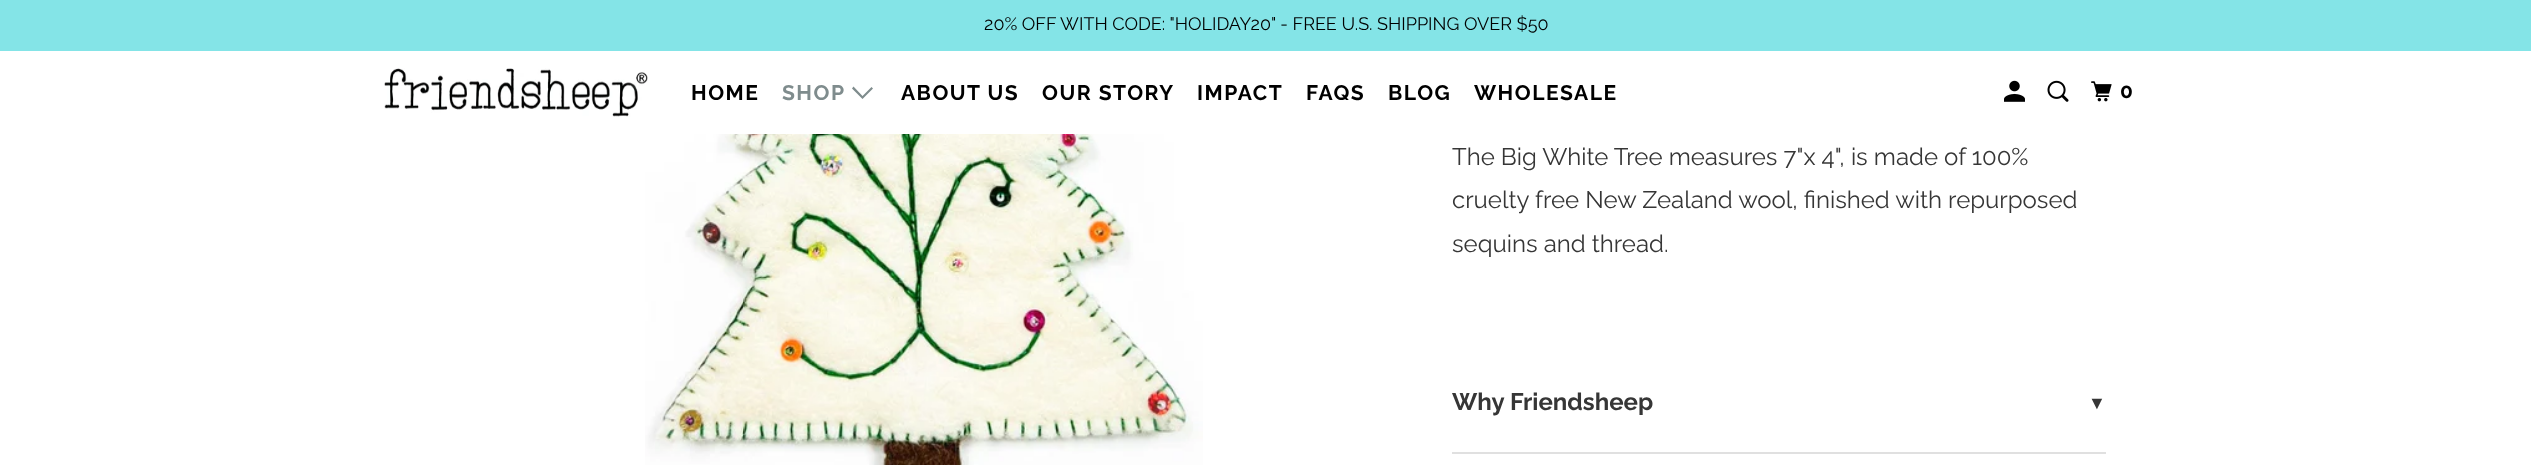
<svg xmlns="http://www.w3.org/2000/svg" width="2531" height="465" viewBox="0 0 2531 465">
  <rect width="100%" height="100%" fill="rgb(255,255,255)"/>
  <rect x="0" y="0" width="2531" height="51" fill="rgb(132,228,231)"/>
  <text x="984" y="30" font-family="Raleway" font-size="18" fill="rgb(0,0,0)">20% OFF WITH CODE: "HOLIDAY20" - FREE U.S. SHIPPING OVER $50</text>
  <image x="384" y="68" width="264" height="49" href="pic1.png"/>
  <text x="691" y="100" font-family="Raleway" font-size="21" font-weight="bold" letter-spacing="1.5" fill="rgb(0,0,0)">HOME</text>
  <text x="782" y="100" font-family="Raleway" font-size="21" font-weight="bold" letter-spacing="1.5" fill="rgb(127,140,141)">SHOP</text>
  <path d="M857 93.5L852 88.5L853.5 86.5L862.5 96L871.5 87L873 88.5L862.5 99Z" fill="rgb(127,140,141)"/>
  <g font-family="Raleway" font-size="21" font-weight="bold" letter-spacing="1.5" fill="rgb(0,0,0)">
    <text x="901" y="100">ABOUT US</text>
    <text x="1042" y="100">OUR STORY</text>
    <text x="1197" y="100">IMPACT</text>
    <text x="1306" y="100">FAQS</text>
    <text x="1388" y="100">BLOG</text>
    <text x="1474" y="100">WHOLESALE</text>
  </g>
  <image x="2004" y="80" width="21" height="22" href="pic2.png"/>
  <image x="2047" y="80" width="22" height="22" href="pic3.png"/>
  <image x="2091" y="81" width="21" height="21" href="pic4.png"/>
  <text x="2120" y="98" font-family="Raleway" font-size="21" font-weight="bold" letter-spacing="1.5" fill="rgb(0,0,0)">0</text>
  <image x="645" y="134" width="558" height="331" href="pic5.png"/>
  <g font-family="Raleway" font-size="24" fill="rgb(54,54,54)">
    <text>
      <tspan x="1452" y="165">The Big White Tree measures 7"x 4", is made of 100%</tspan>
      <tspan x="1452" y="208">cruelty free New Zealand wool, finished with repurposed</tspan>
      <tspan x="1452" y="252">sequins and thread.</tspan>
    </text>
  </g>
  <rect x="1452" y="452" width="654" height="2" fill="rgb(224,224,224)"/>
  <text x="1452" y="410" font-family="Raleway" font-size="24" font-weight="bold" fill="rgb(54,54,54)">Why Friendsheep</text>
  <text x="2088" y="409" font-family="Liberation Sans" font-size="18" font-weight="bold" fill="rgb(54,54,54)">▼</text>
</svg>
